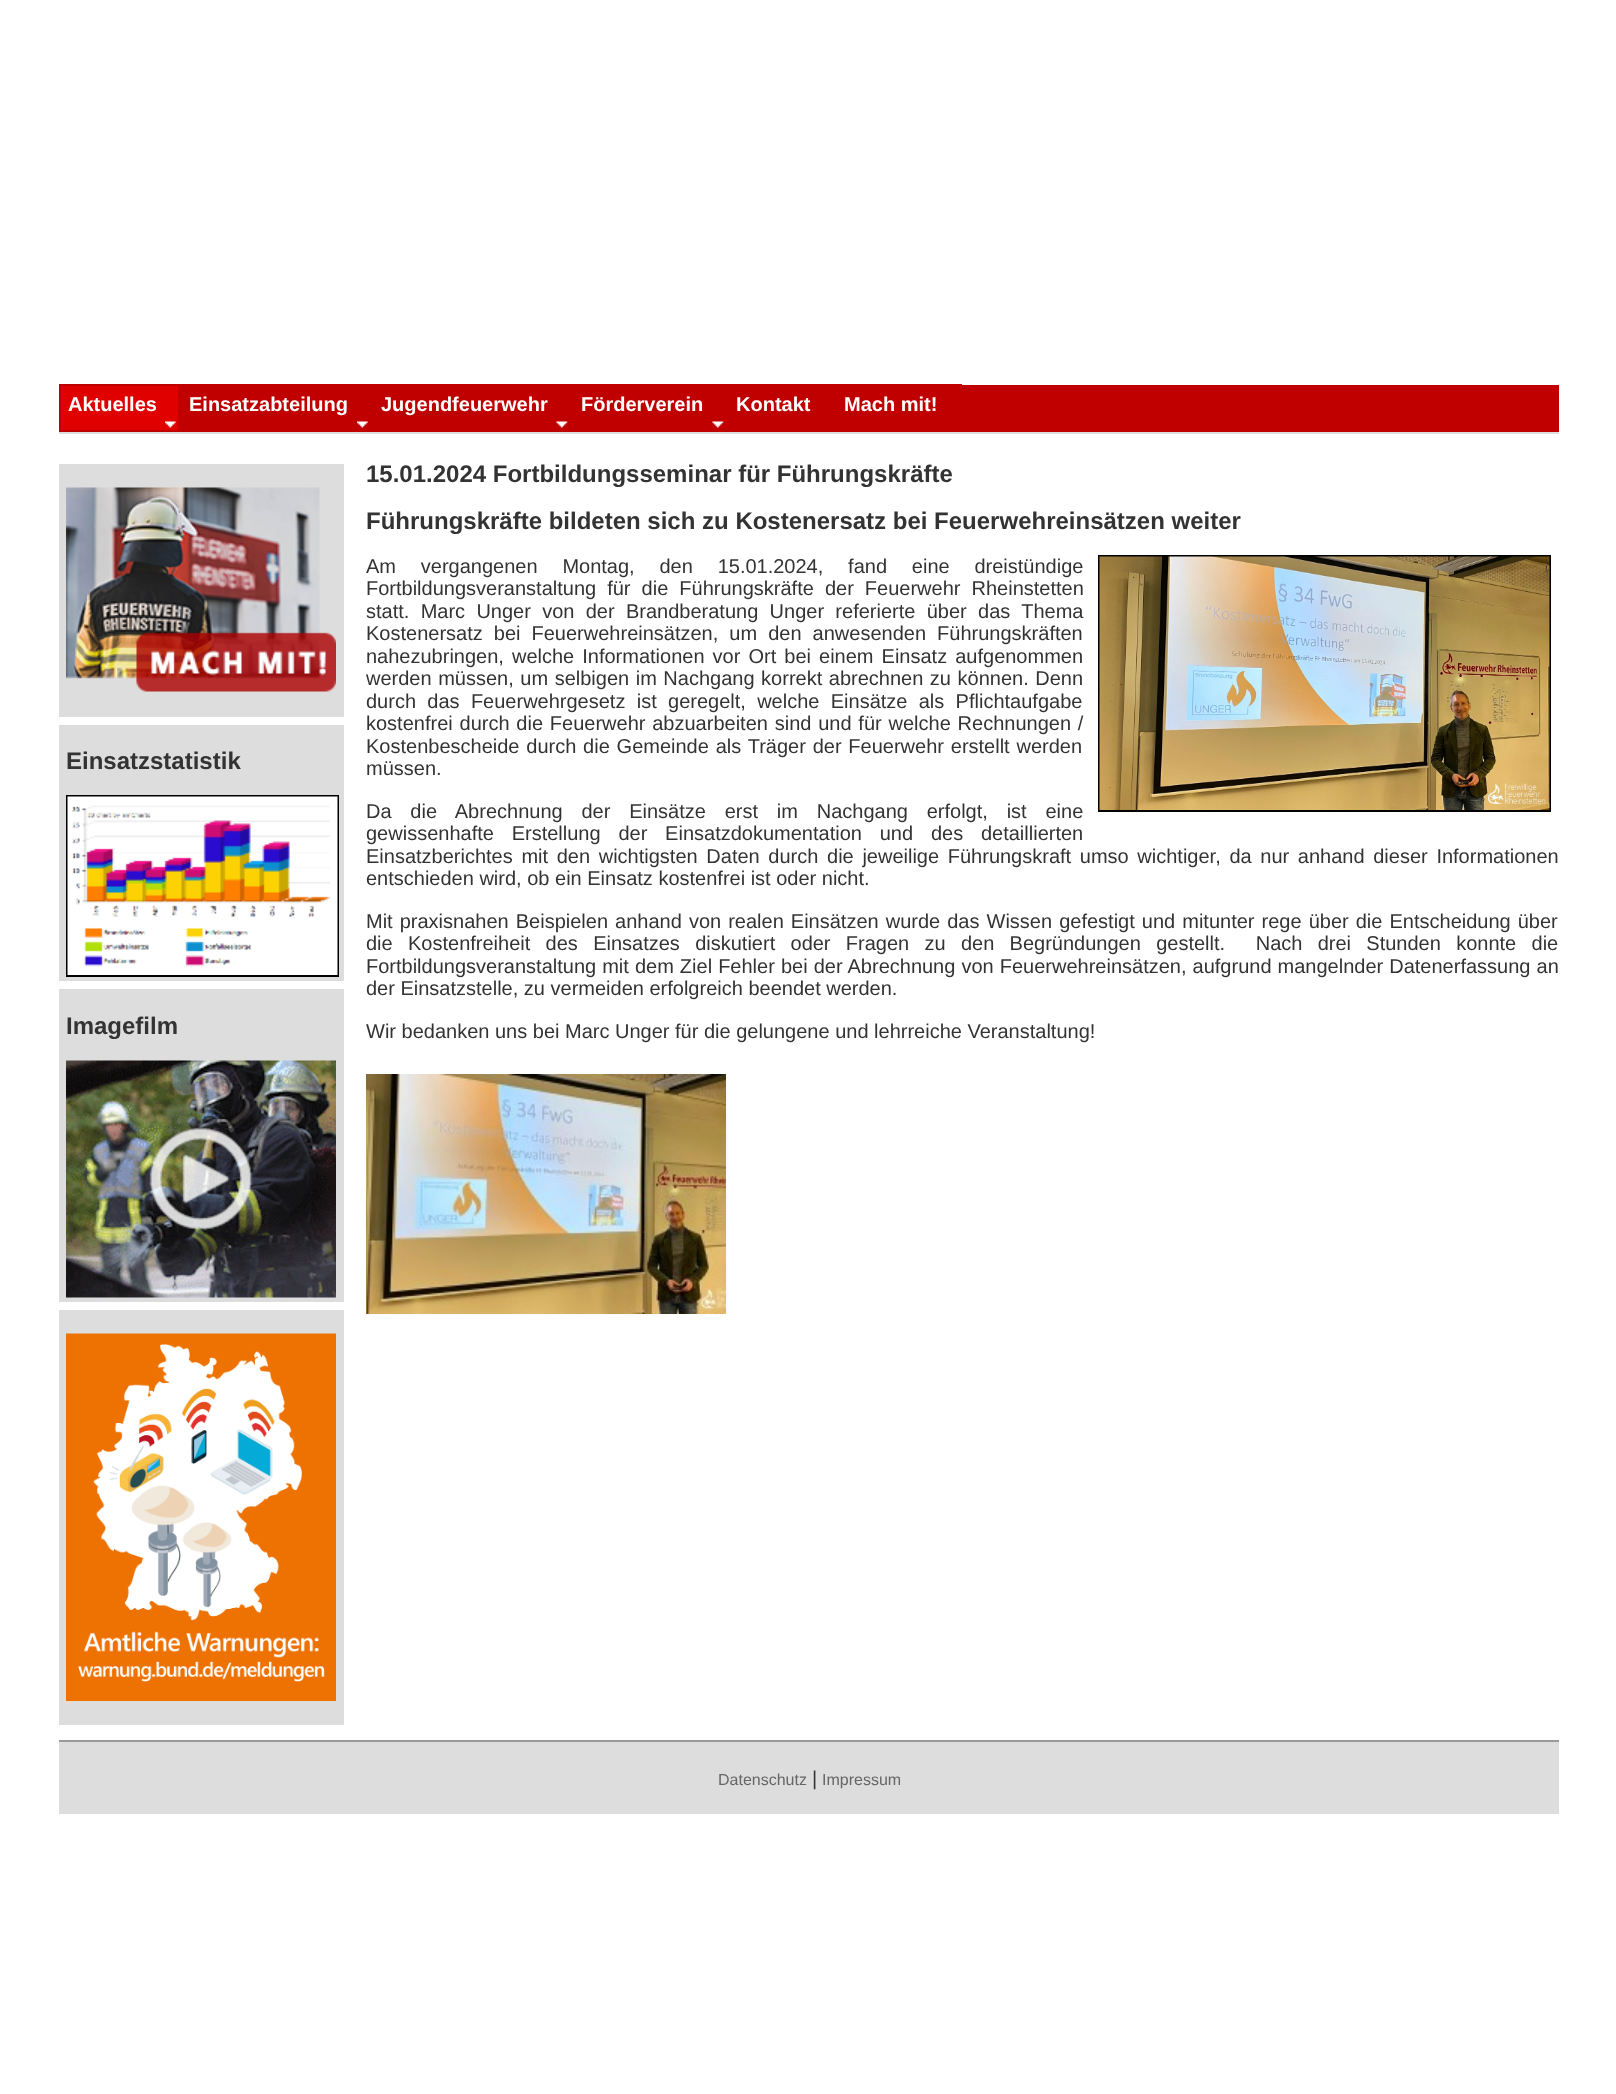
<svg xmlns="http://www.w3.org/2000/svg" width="1616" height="2094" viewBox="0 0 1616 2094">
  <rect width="100%" height="100%" fill="rgb(255,255,255)"/>
  <rect x="59" y="1740" width="1500" height="2" fill="rgb(153,153,153)"/>
  <rect x="962" y="385" width="597" height="47" fill="rgb(192,0,0)"/>
  <rect x="61" y="386" width="117" height="44" fill="rgb(224,0,0)"/>
  <image x="165" y="421" width="11" height="7" href="pic1.png"/>
  <rect x="60" y="385" width="119" height="46" fill="none" stroke="rgb(192,0,0)" stroke-width="2"/>
  <text x="68" y="411" font-family="Liberation Sans" font-size="20" font-weight="bold" fill="rgb(255,255,255)">Aktuelles</text>
  <rect x="180" y="384" width="782" height="48" fill="rgb(192,0,0)"/>
  <image x="357" y="421" width="11" height="7" href="pic2.png"/>
  <text x="189" y="411" font-family="Liberation Sans" font-size="20" font-weight="bold" fill="rgb(255,255,255)">Einsatzabteilung</text>
  <image x="556" y="421" width="12" height="7" href="pic3.png"/>
  <text x="381" y="411" font-family="Liberation Sans" font-size="20" font-weight="bold" fill="rgb(255,255,255)">Jugendfeuerwehr</text>
  <image x="712" y="421" width="12" height="7" href="pic3.png"/>
  <g font-family="Liberation Sans" font-size="20" font-weight="bold" fill="rgb(255,255,255)">
    <text x="581" y="411">Förderverein</text>
    <text x="736" y="411">Kontakt</text>
    <text x="844" y="411">Mach mit!</text>
  </g>
  <rect x="59" y="432" width="1500" height="2" fill="rgb(221,221,221)"/>
  <rect x="59" y="464" width="285" height="253" fill="rgb(221,221,221)"/>
  <image x="66" y="487" width="270" height="205" href="pic4.png"/>
  <rect x="59" y="725" width="285" height="256" fill="rgb(221,221,221)"/>
  <text x="66" y="769" font-family="Liberation Sans" font-size="24" font-weight="bold" fill="rgb(51,51,51)">Einsatzstatistik</text>
  <rect x="67" y="796" width="271" height="180" fill="none" stroke="rgb(0,0,0)" stroke-width="2"/>
  <image x="67" y="796" width="271" height="179" href="pic5.png"/>
  <rect x="59" y="989" width="285" height="313" fill="rgb(221,221,221)"/>
  <text x="66" y="1034" font-family="Liberation Sans" font-size="24" font-weight="bold" fill="rgb(51,51,51)">Imagefilm</text>
  <image x="66" y="1060" width="270" height="238" href="pic6.png"/>
  <rect x="59" y="1310" width="285" height="415" fill="rgb(221,221,221)"/>
  <image x="66" y="1333" width="270" height="368" href="pic7.png"/>
  <g font-family="Liberation Sans" font-size="24" font-weight="bold" fill="rgb(51,51,51)">
    <text>
      <tspan x="366" y="482">15.01.2024 Fortbildungsseminar für Führungskräfte</tspan>
      <tspan x="366" y="529">Führungskräfte bildeten sich zu Kostenersatz bei Feuerwehreinsätzen weiter</tspan>
    </text>
  </g>
  <g font-family="Liberation Sans" font-size="20" fill="rgb(51,51,51)">
    <text>
      <tspan x="366" y="573" word-spacing="19.25">Am vergangenen Montag, den 15.01.2024, fand eine dreistündige</tspan>
      <tspan x="366" y="595" word-spacing="5.5">Fortbildungsveranstaltung für die Führungskräfte der Feuerwehr Rheinstetten</tspan>
      <tspan x="366" y="618" word-spacing="5.75">statt. Marc Unger von der Brandberatung Unger referierte über das Thema</tspan>
      <tspan x="366" y="640" word-spacing="5.5">Kostenersatz bei Feuerwehreinsätzen, um den anwesenden Führungskräften</tspan>
      <tspan x="366" y="663" word-spacing="2.5">nahezubringen, welche Informationen vor Ort bei einem Einsatz aufgenommen</tspan>
      <tspan x="366" y="685" word-spacing="1">werden müssen, um selbigen im Nachgang korrekt abrechnen zu können. Denn</tspan>
      <tspan x="366" y="708" word-spacing="5.75">durch das Feuerwehrgesetz ist geregelt, welche Einsätze als Pflichtaufgabe</tspan>
      <tspan x="366" y="730" word-spacing="1.25">kostenfrei durch die Feuerwehr abzuarbeiten sind und für welche Rechnungen /</tspan>
      <tspan x="366" y="753" word-spacing="1.25">Kostenbescheide durch die Gemeinde als Träger der Feuerwehr erstellt werden</tspan>
      <tspan x="366" y="775">müssen.</tspan>
    </text>
  </g>
  <rect x="1099" y="556" width="451" height="255" fill="none" stroke="rgb(0,0,0)" stroke-width="2"/>
  <image x="1099" y="556" width="451" height="254" href="pic8.png"/>
  <g font-family="Liberation Sans" font-size="20" fill="rgb(51,51,51)">
    <text>
      <tspan x="366" y="818" word-spacing="13.25">Da die Abrechnung der Einsätze erst im Nachgang erfolgt, ist eine</tspan>
      <tspan x="366" y="840" word-spacing="12.25">gewissenhafte Erstellung der Einsatzdokumentation und des detaillierten</tspan>
      <tspan x="366" y="863" word-spacing="3.1">Einsatzberichtes mit den wichtigsten Daten durch die jeweilige Führungskraft umso wichtiger, da nur anhand dieser Informationen</tspan>
      <tspan x="366" y="885">entschieden wird, ob ein Einsatz kostenfrei ist oder nicht.</tspan>
    </text>
    <text xml:space="preserve"><tspan x="366" y="928" word-spacing="1.5">Mit praxisnahen Beispielen anhand von realen Einsätzen wurde das Wissen gefestigt und mitunter rege über die Entscheidung über</tspan><tspan x="366" y="950" word-spacing="9.75">die Kostenfreiheit des Einsatzes diskutiert oder Fragen zu den Begründungen gestellt.  Nach drei Stunden konnte die</tspan><tspan x="366" y="973" word-spacing="0.5">Fortbildungsveranstaltung mit dem Ziel Fehler bei der Abrechnung von Feuerwehreinsätzen, aufgrund mangelnder Datenerfassung an</tspan><tspan x="366" y="995">der Einsatzstelle, zu vermeiden erfolgreich beendet werden.</tspan></text>
    <text x="366" y="1038">Wir bedanken uns bei Marc Unger für die gelungene und lehrreiche Veranstaltung!</text>
  </g>
  <image x="366" y="1074" width="360" height="240" href="pic9.png"/>
  <rect x="59" y="1742" width="1500" height="72" fill="rgb(221,221,221)"/>
  <text x="718" y="1785" font-family="Liberation Sans" font-size="16" fill="rgb(102,102,102)">Datenschutz</text>
  <text x="812" y="1785" font-family="Liberation Sans" font-size="20" fill="rgb(51,51,51)">|</text>
  <text x="822" y="1785" font-family="Liberation Sans" font-size="16" fill="rgb(102,102,102)">Impressum</text>
</svg>
